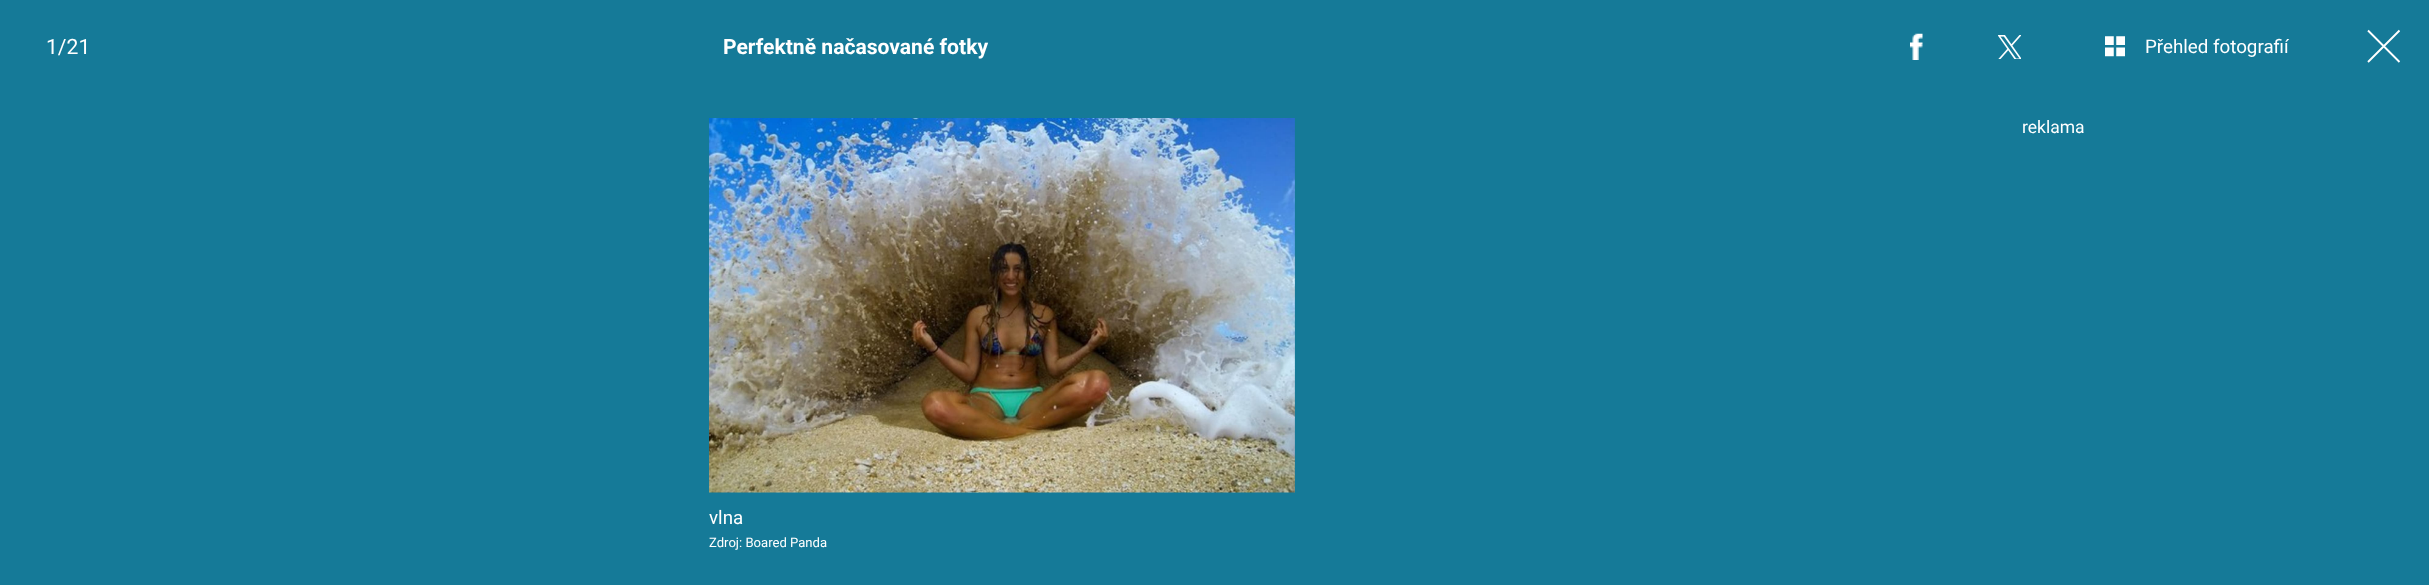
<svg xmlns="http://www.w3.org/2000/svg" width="2429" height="585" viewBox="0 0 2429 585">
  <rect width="100%" height="100%" fill="rgb(21,122,152)"/>
  <text x="46" y="54" font-family="Roboto" font-size="21.1" fill="rgb(255,255,255)">1/21</text>
  <text x="723" y="54" font-family="Roboto" font-size="21.1" font-weight="bold" fill="rgb(255,255,255)">Perfektně načasované fotky</text>
  <image x="1910" y="33" width="13" height="27" href="pic1.png"/>
  <image x="1998" y="35" width="23" height="24" href="pic2.png"/>
  <image x="2105" y="36" width="20" height="21" href="pic3.png"/>
  <text x="2145" y="53" font-family="Roboto" font-size="18.75" fill="rgb(255,255,255)">Přehled fotografií</text>
  <path d="M2368 30.5L2399.5 62M2399.5 30.5L2368 62" fill="none" stroke="rgb(255,255,255)" stroke-width="1.9"/>
  <text x="2022" y="133" font-family="Roboto" font-size="17.5" fill="rgb(255,255,255)">reklama</text>
  <image x="709" y="118" width="586" height="375" href="pic4.png"/>
  <text x="709" y="524" font-family="Roboto" font-size="18.75" fill="rgb(255,255,255)">vlna</text>
  <text x="709" y="547" font-family="Roboto" font-size="13.1" fill="rgb(255,255,255)">Zdroj: Boared Panda</text>
</svg>
